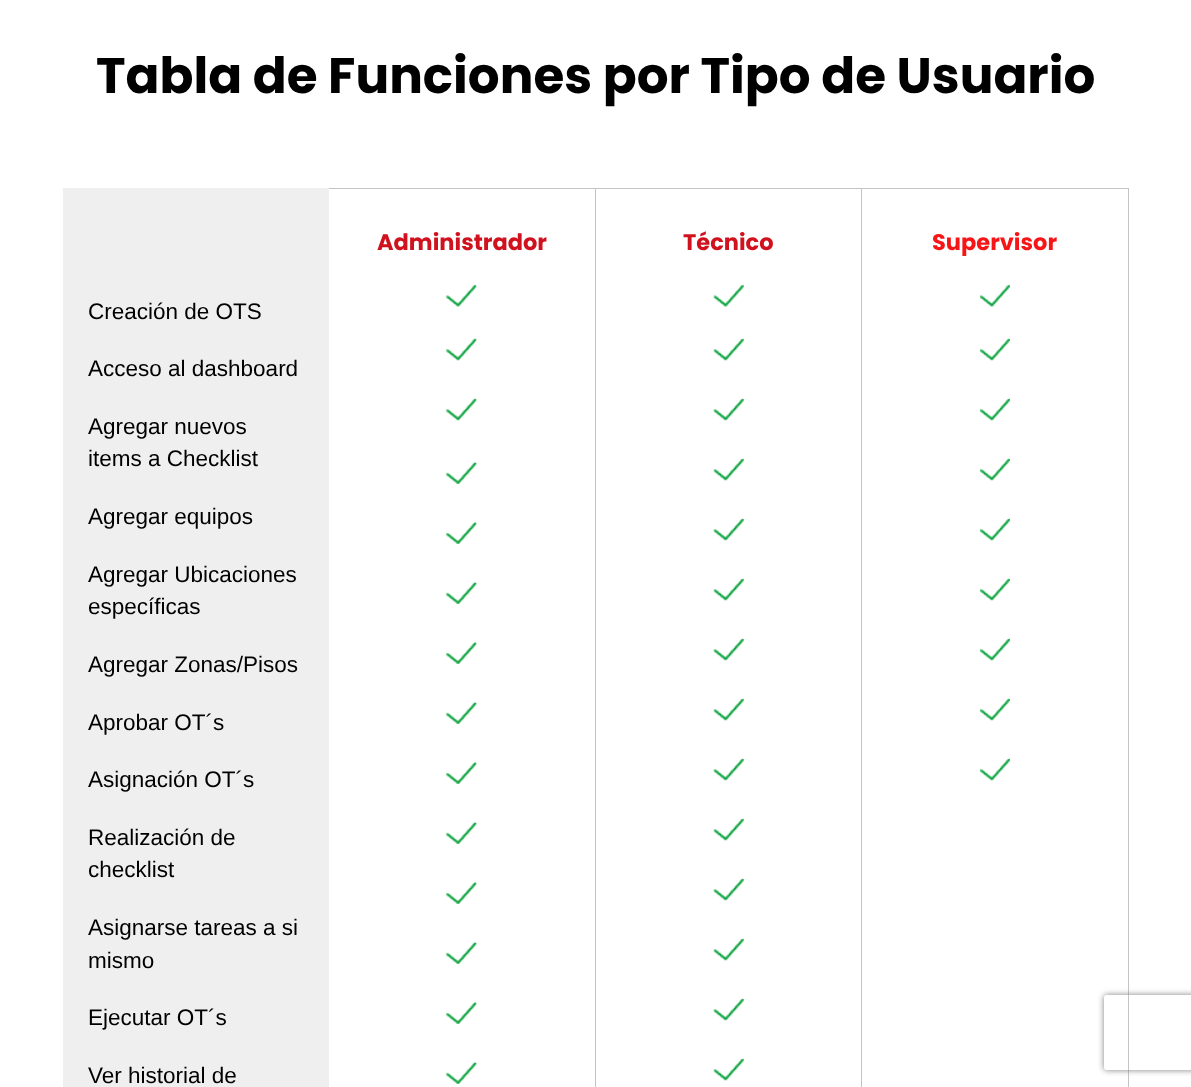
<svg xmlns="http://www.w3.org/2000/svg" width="1191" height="1087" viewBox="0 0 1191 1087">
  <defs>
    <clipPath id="clip1"><path d="M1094 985H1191V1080H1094ZM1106.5 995H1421.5C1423 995 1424 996 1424 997.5V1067.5C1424 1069 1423 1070 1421.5 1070H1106.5C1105 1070 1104 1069 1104 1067.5V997.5C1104 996 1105 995 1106.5 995Z" clip-rule="evenodd"/></clipPath>
  </defs>
  <rect width="100%" height="100%" fill="rgb(255,255,255)"/>
  <text x="96" y="93" font-family="Poppins" font-size="50" font-weight="bold" fill="rgb(0,0,0)">Tabla de Funciones por Tipo de Usuario</text>
  <rect x="329" y="188" width="800" height="1" fill="rgb(196,196,196)"/>
  <rect x="595" y="188" width="1" height="899" fill="rgb(196,196,196)"/>
  <text x="377" y="250" font-family="Poppins" font-size="22.5" font-weight="bold" fill="rgb(208,18,30)">Administrador</text>
  <image x="446" y="284" width="31" height="23" href="pic1.png"/>
  <image x="446" y="338" width="31" height="23" href="pic2.png"/>
  <image x="446" y="398" width="31" height="23" href="pic2.png"/>
  <image x="446" y="461" width="31" height="23" href="pic3.png"/>
  <image x="446" y="521" width="31" height="23" href="pic3.png"/>
  <image x="446" y="581" width="31" height="23" href="pic3.png"/>
  <image x="446" y="641" width="31" height="23" href="pic3.png"/>
  <image x="446" y="701" width="31" height="23" href="pic3.png"/>
  <image x="446" y="761" width="31" height="23" href="pic3.png"/>
  <image x="446" y="821" width="31" height="23" href="pic3.png"/>
  <image x="446" y="881" width="31" height="23" href="pic3.png"/>
  <image x="446" y="941" width="31" height="23" href="pic4.png"/>
  <image x="446" y="1001" width="31" height="23" href="pic3.png"/>
  <image x="446" y="1061" width="31" height="23" href="pic3.png"/>
  <rect x="861" y="188" width="1" height="899" fill="rgb(196,196,199)"/>
  <text x="683" y="250" font-family="Poppins" font-size="22.5" font-weight="bold" fill="rgb(208,18,30)">Técnico</text>
  <image x="713" y="284" width="31" height="23" href="pic5.png"/>
  <image x="713" y="338" width="31" height="23" href="pic6.png"/>
  <image x="713" y="398" width="31" height="23" href="pic6.png"/>
  <image x="713" y="458" width="31" height="23" href="pic6.png"/>
  <image x="713" y="518" width="31" height="23" href="pic6.png"/>
  <image x="713" y="578" width="31" height="23" href="pic6.png"/>
  <image x="713" y="638" width="31" height="23" href="pic6.png"/>
  <image x="713" y="698" width="31" height="23" href="pic6.png"/>
  <image x="713" y="758" width="31" height="23" href="pic6.png"/>
  <image x="713" y="818" width="31" height="23" href="pic6.png"/>
  <image x="713" y="878" width="31" height="23" href="pic6.png"/>
  <image x="713" y="938" width="31" height="23" href="pic7.png"/>
  <image x="713" y="998" width="31" height="23" href="pic6.png"/>
  <image x="713" y="1058" width="31" height="23" href="pic6.png"/>
  <rect x="1128" y="188" width="1" height="899" fill="rgb(196,196,196)"/>
  <text x="932" y="250" font-family="Poppins" font-size="22.5" font-weight="bold" fill="rgb(246,22,23)">Supervisor</text>
  <image x="980" y="284" width="30" height="23" href="pic8.png"/>
  <image x="980" y="338" width="30" height="23" href="pic9.png"/>
  <image x="980" y="398" width="30" height="23" href="pic9.png"/>
  <image x="980" y="458" width="30" height="23" href="pic9.png"/>
  <image x="980" y="518" width="30" height="23" href="pic9.png"/>
  <image x="980" y="578" width="30" height="23" href="pic9.png"/>
  <image x="980" y="638" width="30" height="23" href="pic9.png"/>
  <image x="980" y="698" width="30" height="23" href="pic9.png"/>
  <image x="980" y="758" width="30" height="23" href="pic9.png"/>
  <rect x="63" y="188" width="266" height="899" fill="rgb(239,239,239)"/>
  <g font-family="Liberation Sans" font-size="22.5" fill="rgb(0,0,0)">
    <text x="88" y="319">Creación de OTS</text>
    <text x="88" y="376">Acceso al dashboard</text>
    <text>
      <tspan x="88" y="434">Agregar nuevos</tspan>
      <tspan x="88" y="466">items a Checklist</tspan>
    </text>
    <text x="88" y="524">Agregar equipos</text>
    <text>
      <tspan x="88" y="582">Agregar Ubicaciones</tspan>
      <tspan x="88" y="614">específicas</tspan>
    </text>
    <text x="88" y="672">Agregar Zonas/Pisos</text>
    <text x="88" y="730">Aprobar OT´s</text>
    <text x="88" y="787">Asignación OT´s</text>
    <text>
      <tspan x="88" y="845">Realización de</tspan>
      <tspan x="88" y="877">checklist</tspan>
    </text>
    <text>
      <tspan x="88" y="935">Asignarse tareas a si</tspan>
      <tspan x="88" y="968">mismo</tspan>
    </text>
    <text x="88" y="1025">Ejecutar OT´s</text>
    <text x="88" y="1083">Ver historial de</text>
  </g>
  <g clip-path="url(#clip1)">
    <rect x="1104" y="995" width="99" height="75" rx="2.5" fill="rgb(128,128,128)" filter="blur(3px)"/>
  </g>
</svg>
